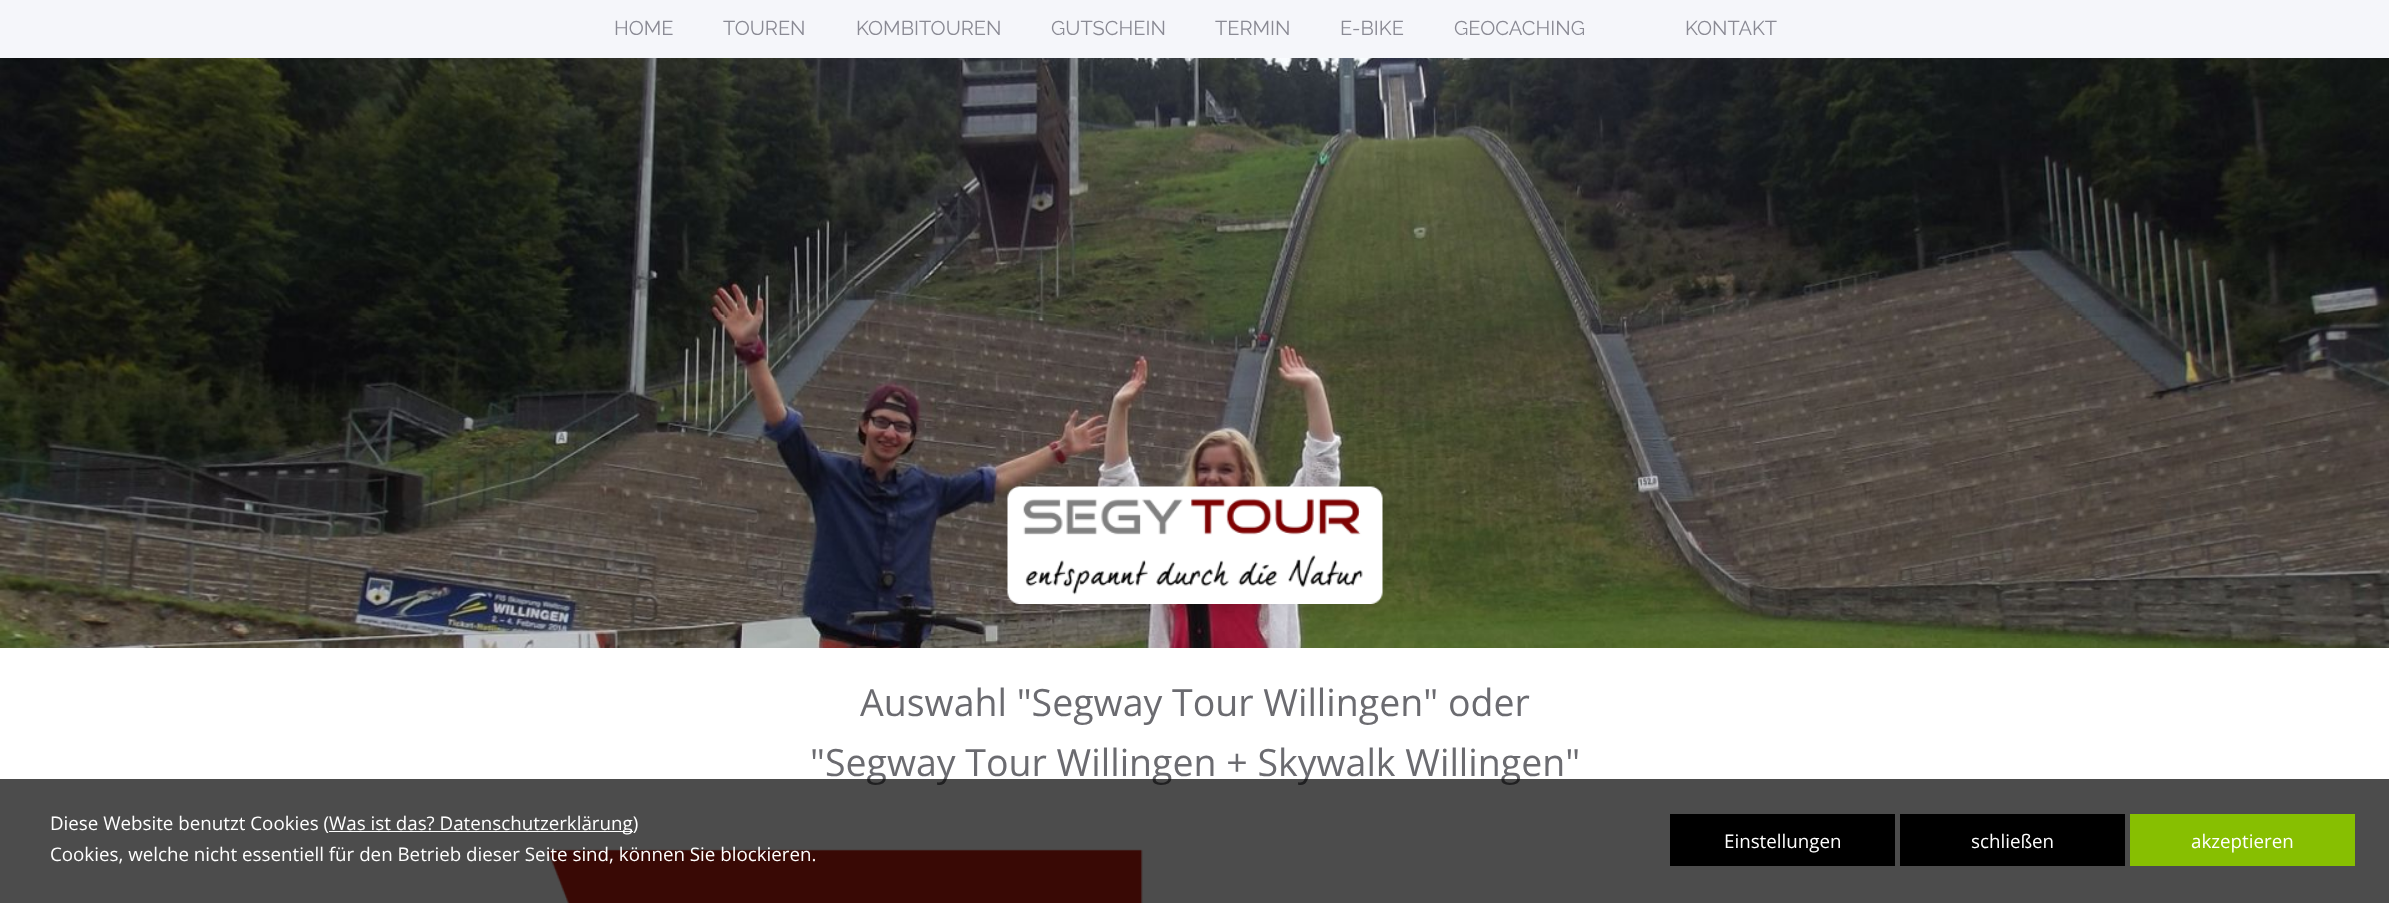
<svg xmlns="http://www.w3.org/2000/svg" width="2389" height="903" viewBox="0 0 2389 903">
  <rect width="100%" height="100%" fill="rgb(255,255,255)"/>
  <rect x="0" y="0" width="2389" height="58" fill="rgb(245,246,250)"/>
  <g font-family="Raleway" font-size="20" fill="rgb(138,138,148)">
    <text x="614" y="35">HOME</text>
    <text x="723" y="35">TOUREN</text>
    <text x="856" y="35">KOMBITOUREN</text>
    <text x="1051" y="35">GUTSCHEIN</text>
    <text x="1215" y="35">TERMIN</text>
    <text x="1340" y="35">E-BIKE</text>
    <text x="1454" y="35">GEOCACHING</text>
    <text x="1685" y="35">KONTAKT</text>
  </g>
  <image x="0" y="58" width="2389" height="590" href="pic1.png"/>
  <image x="1007" y="486" width="376" height="118" href="pic2.png"/>
  <g font-family="Open Sans" font-size="37.5" fill="rgb(107,107,112)">
    <text x="860" y="716">Auswahl "Segway Tour Willingen" oder</text>
    <text x="810" y="776">"Segway Tour Willingen + Skywalk Willingen"</text>
  </g>
  <image x="547" y="849" width="596" height="54" href="pic3.png"/>
  <rect x="0" y="779" width="2389" height="124" fill="rgba(0,0,0,0.7)"/>
  <text x="50" y="830" font-family="Open Sans" font-size="18.75" fill="rgb(255,255,255)">Diese Website benutzt Cookies (</text>
  <rect x="329" y="831" width="304" height="1" fill="rgb(255,255,255)"/>
  <g font-family="Open Sans" font-size="18.75" fill="rgb(255,255,255)">
    <text x="329" y="830">Was ist das? Datenschutzerklärung)</text>
    <text x="50" y="861">Cookies, welche nicht essentiell für den Betrieb dieser Seite sind, können Sie blockieren.</text>
  </g>
  <rect x="1670" y="814" width="225" height="52" fill="rgb(0,0,0)"/>
  <text x="1724" y="848" font-family="Open Sans" font-size="18.75" fill="rgb(255,255,255)">Einstellungen</text>
  <rect x="1900" y="814" width="225" height="52" fill="rgb(0,0,0)"/>
  <text x="1971" y="848" font-family="Open Sans" font-size="18.75" fill="rgb(255,255,255)">schließen</text>
  <rect x="2130" y="814" width="225" height="52" fill="rgb(135,191,1)"/>
  <text x="2191" y="848" font-family="Open Sans" font-size="18.75" fill="rgb(255,255,255)">akzeptieren</text>
</svg>
